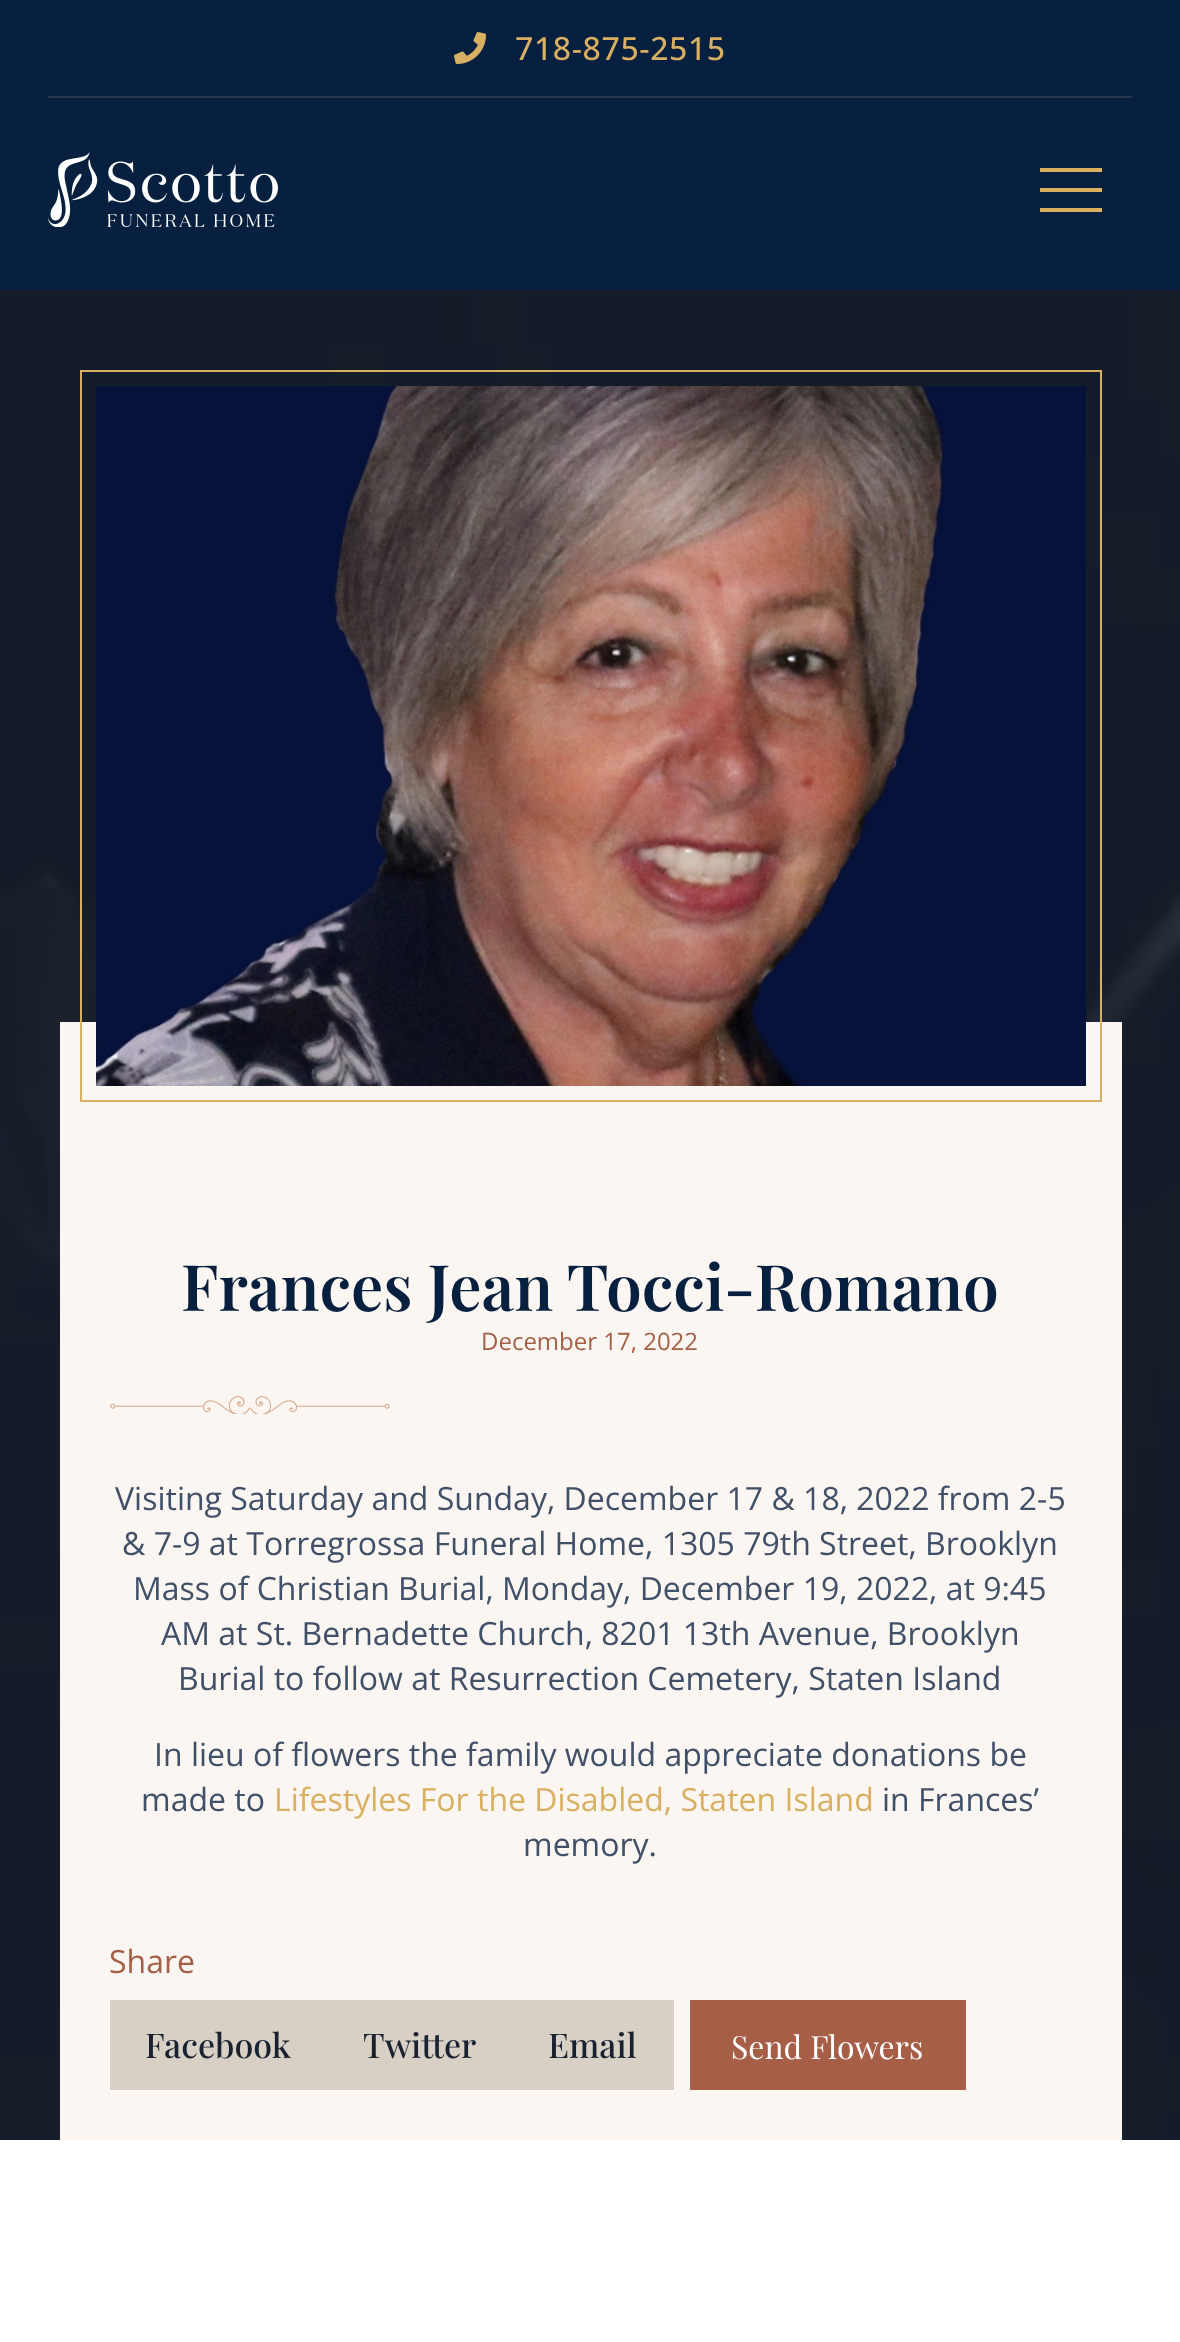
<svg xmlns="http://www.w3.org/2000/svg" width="1180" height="2342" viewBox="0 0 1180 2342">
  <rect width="100%" height="100%" fill="rgb(255,255,255)"/>
  <rect x="0" y="0" width="1180" height="290" fill="rgb(7,32,63)"/>
  <rect x="48" y="96" width="1084" height="2" fill="rgb(40,54,78)"/>
  <image x="454" y="32" width="32" height="32" href="pic1.png"/>
  <text x="515" y="60" font-family="Open Sans" font-size="32" font-weight="500" letter-spacing="0.6" fill="rgb(217,176,97)">718-875-2515</text>
  <image x="48" y="152" width="230" height="75" href="pic2.png"/>
  <rect x="1040" y="188" width="62" height="4" fill="rgb(217,176,97)"/>
  <rect x="1040" y="168" width="62" height="4" fill="rgb(217,176,97)"/>
  <rect x="1040" y="208" width="62" height="4" fill="rgb(217,176,97)"/>
  <image x="0" y="290" width="1180" height="1850" href="pic3.png"/>
  <rect x="60" y="1022" width="1062" height="1118" fill="rgb(251,246,241)"/>
  <rect x="81" y="371" width="1020" height="730" fill="none" stroke="rgb(217,176,97)" stroke-width="2"/>
  <image x="96" y="386" width="990" height="700" href="pic4.png"/>
  <text x="181" y="1311" font-family="Playfair Display" font-size="64" font-weight="600" fill="rgb(7,32,63)">Frances Jean Tocci-Romano</text>
  <text x="481" y="1350" font-family="Open Sans" font-size="24" fill="rgb(166,94,70)">December 17, 2022</text>
  <image x="110" y="1396" width="140" height="18" href="pic5.png"/>
  <image x="250" y="1396" width="140" height="18" href="pic6.png"/>
  <g font-family="Open Sans" font-size="32" fill="rgb(64,80,105)">
    <text x="115" y="1510">Visiting Saturday and Sunday, December 17 &amp; 18, 2022 from 2-5</text>
    <text x="122" y="1555">&amp; 7-9 at Torregrossa Funeral Home, 1305 79th Street, Brooklyn</text>
    <text x="133" y="1600">Mass of Christian Burial, Monday, December 19, 2022, at 9:45</text>
    <text x="161" y="1645">AM at St. Bernadette Church, 8201 13th Avenue, Brooklyn</text>
    <text x="178" y="1690">Burial to follow at Resurrection Cemetery, Staten Island</text>
    <text x="154" y="1766">In lieu of flowers the family would appreciate donations be</text>
    <text x="141" y="1811">made to</text>
  </g>
  <text x="274" y="1811" font-family="Open Sans" font-size="32" fill="rgb(217,176,97)">Lifestyles For the Disabled, Staten Island</text>
  <g font-family="Open Sans" font-size="32" fill="rgb(64,80,105)">
    <text x="882" y="1811">in Frances’</text>
    <text x="523" y="1856">memory.</text>
  </g>
  <text x="109" y="1973" font-family="Open Sans" font-size="32" fill="rgb(166,94,70)">Share</text>
  <rect x="110" y="2000" width="564" height="90" fill="rgb(216,208,197)"/>
  <g font-family="Playfair Display" font-size="34" font-weight="500" fill="rgb(25,34,49)">
    <text x="145" y="2058">Facebook</text>
    <text x="363" y="2058">Twitter</text>
    <text x="548" y="2058">Email</text>
  </g>
  <rect x="690" y="2000" width="276" height="90" fill="rgb(166,94,70)"/>
  <text x="731" y="2059" font-family="Playfair Display" font-size="32" fill="rgb(255,255,255)">Send Flowers</text>
</svg>
